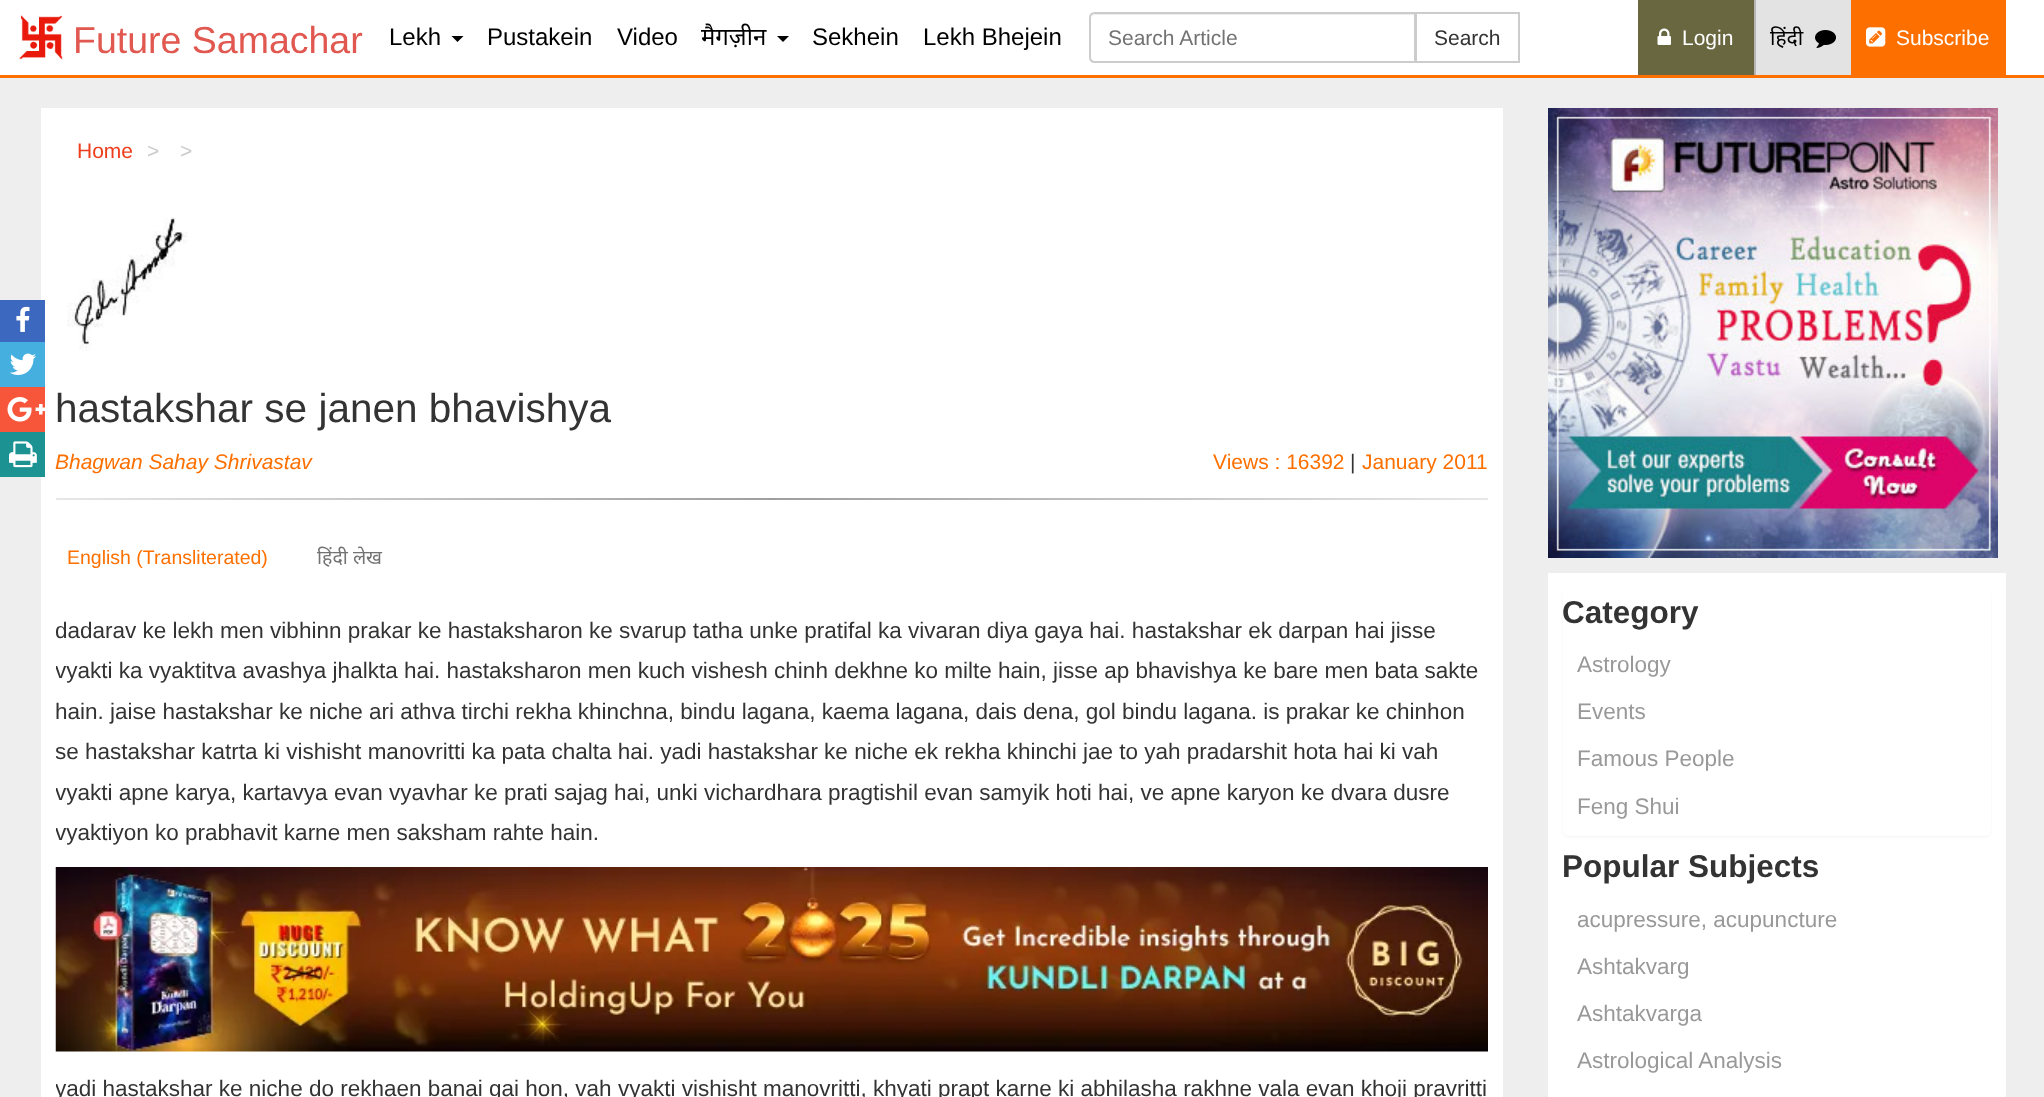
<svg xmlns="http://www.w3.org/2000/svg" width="2044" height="1097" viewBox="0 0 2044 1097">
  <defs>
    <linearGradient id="g1" gradientUnits="userSpaceOnUse" x1="56" y1="499" x2="1488" y2="499"><stop offset="0" stop-color="rgb(231,231,231)"/><stop offset="0.5" stop-color="rgb(158,158,158)"/><stop offset="1" stop-color="rgb(231,231,231)"/></linearGradient>
    <clipPath id="clip1"><rect x="56" y="609" width="1432" height="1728"/></clipPath>
  </defs>
  <rect width="100%" height="100%" fill="rgb(255,255,255)"/>
  <rect x="0" y="75" width="2044" height="3" fill="rgb(253,112,0)"/>
  <image x="19" y="15" width="44" height="45" href="pic1.png"/>
  <text x="73" y="53" font-family="Liberation Sans" font-size="37.5" fill="rgb(225,88,80)">Future Samachar</text>
  <text x="389" y="45" font-family="Liberation Sans" font-size="24" fill="rgb(0,0,0)">Lekh</text>
  <path d="M451.5 36H463.5L457.5 42Z" fill="rgb(0,0,0)"/>
  <g font-family="Liberation Sans" font-size="24" fill="rgb(0,0,0)">
    <text x="487" y="45">Pustakein</text>
    <text x="617" y="45">Video</text>
  </g>
  <text x="701" y="45" font-family="Noto Sans" font-size="24" fill="rgb(0,0,0)">मैगज़ीन</text>
  <path d="M777 36H789L783 42Z" fill="rgb(0,0,0)"/>
  <g font-family="Liberation Sans" font-size="24" fill="rgb(0,0,0)">
    <text x="812" y="45">Sekhein</text>
    <text x="923" y="45">Lekh Bhejein</text>
  </g>
  <rect x="1416" y="13" width="103" height="49" fill="none" stroke="rgb(204,204,204)" stroke-width="2"/>
  <path d="M1095 12H1416V63H1095C1091.5 63 1089 60.5 1089 57V18C1089 14.5 1091.5 12 1095 12Z" fill="rgb(255,255,255)"/>
  <path d="M1095 15H1414V62H1415V14H1096C1094 14 1093 15 1092 16Z" fill="rgb(236,236,236)"/>
  <path d="M1095 13H1415V62H1095C1092 62 1090 60 1090 57V18C1090 15 1092 13 1095 13Z" fill="none" stroke="rgb(204,204,204)" stroke-width="2"/>
  <text x="1108" y="45" font-family="Liberation Sans" font-size="21" fill="rgb(115,115,115)">Search Article</text>
  <text x="1434" y="45" font-family="Liberation Sans" font-size="21" fill="rgb(51,51,51)">Search</text>
  <rect x="1638" y="0" width="116" height="75" fill="rgb(105,103,64)"/>
  <image x="1657" y="28" width="14" height="17" href="pic2.png"/>
  <text x="1682" y="45" font-family="Liberation Sans" font-size="21" fill="rgb(255,255,255)">Login</text>
  <rect x="1756" y="0" width="95" height="75" fill="rgb(227,227,227)"/>
  <rect x="1754" y="0" width="2" height="75" fill="rgb(182,182,182)"/>
  <text x="1770" y="45" font-family="Noto Sans" font-size="21" fill="rgb(0,0,0)">हिंदी</text>
  <image x="1815" y="30" width="21" height="18" href="pic3.png"/>
  <rect x="1851" y="0" width="155" height="75" fill="rgb(253,112,0)"/>
  <image x="1866" y="27" width="20" height="20" href="pic4.png"/>
  <text x="1896" y="45" font-family="Liberation Sans" font-size="21" fill="rgb(255,255,255)">Subscribe</text>
  <rect x="0" y="78" width="2044" height="1019" fill="rgb(238,238,238)"/>
  <rect x="41" y="108" width="1462" height="989" fill="rgb(255,255,255)"/>
  <rect x="0" y="300" width="45" height="42" fill="rgb(61,104,191)"/>
  <image x="16" y="306" width="14" height="26" href="pic5.png"/>
  <rect x="0" y="342" width="45" height="45" fill="rgb(69,176,224)"/>
  <image x="10" y="353" width="26" height="22" href="pic6.png"/>
  <rect x="0" y="387" width="45" height="45" fill="rgb(247,86,59)"/>
  <image x="7" y="397" width="38" height="25" href="pic7.png"/>
  <rect x="0" y="432" width="45" height="45" fill="rgb(29,146,147)"/>
  <image x="9" y="441" width="28" height="27" href="pic8.png"/>
  <text x="77" y="158" font-family="Liberation Sans" font-size="21" fill="rgb(238,61,27)">Home</text>
  <g font-family="Liberation Sans" font-size="21" fill="rgb(204,204,204)">
    <text x="147" y="158">&gt;</text>
    <text x="180" y="158">&gt;</text>
  </g>
  <image x="67" y="217" width="121" height="134" href="pic9.png"/>
  <text x="55" y="422" font-family="Liberation Sans" font-size="40.5" fill="rgb(51,51,51)">hastakshar se janen bhavishya</text>
  <text x="55" y="469" font-family="Liberation Sans" font-size="21" font-style="italic" fill="rgb(253,112,0)">Bhagwan Sahay Shrivastav</text>
  <text x="1213" y="469" font-family="Liberation Sans" font-size="21" fill="rgb(253,112,0)">Views : 16392</text>
  <text x="1350" y="469" font-family="Liberation Sans" font-size="21" fill="rgb(51,51,51)">|</text>
  <text x="1362" y="469" font-family="Liberation Sans" font-size="21" fill="rgb(253,112,0)">January 2011</text>
  <rect x="56" y="498" width="1432" height="2" fill="url(#g1)"/>
  <text x="67" y="564" font-family="Liberation Sans" font-size="19.5" fill="rgb(253,112,0)">English (Transliterated)</text>
  <text x="317" y="564" font-family="Noto Sans" font-size="19.5" fill="rgb(115,115,115)">हिंदी लेख</text>
  <g clip-path="url(#clip1)">
    <g font-family="Liberation Sans" font-size="22.5" fill="rgb(51,51,51)">
      <text>
        <tspan x="55" y="638">dadarav ke lekh men vibhinn prakar ke hastaksharon ke svarup tatha unke pratifal ka vivaran diya gaya hai. hastakshar ek darpan hai jisse</tspan>
        <tspan x="55" y="678">vyakti ka vyaktitva avashya jhalkta hai. hastaksharon men kuch vishesh chinh dekhne ko milte hain, jisse ap bhavishya ke bare men bata sakte</tspan>
      </text>
    </g>
  </g>
  <text x="55" y="719" font-family="Liberation Sans" font-size="22.5" fill="rgb(51,51,51)">hain. jaise hastakshar ke niche ari athva tirchi rekha khinchna, bindu lagana, kaema lagana, dais dena, gol bindu lagana. is prakar ke chinhon</text>
  <g clip-path="url(#clip1)">
    <g font-family="Liberation Sans" font-size="22.5" fill="rgb(51,51,51)">
      <text>
        <tspan x="55" y="759">se hastakshar katrta ki vishisht manovritti ka pata chalta hai. yadi hastakshar ke niche ek rekha khinchi jae to yah pradarshit hota hai ki vah</tspan>
        <tspan x="55" y="800">vyakti apne karya, kartavya evan vyavhar ke prati sajag hai, unki vichardhara pragtishil evan samyik hoti hai, ve apne karyon ke dvara dusre</tspan>
        <tspan x="55" y="840">vyaktiyon ko prabhavit karne men saksham rahte hain.</tspan>
      </text>
    </g>
  </g>
  <image x="55" y="867" width="1433" height="185" href="pic10.png"/>
  <g clip-path="url(#clip1)">
    <text x="55" y="1096" font-family="Liberation Sans" font-size="22.5" fill="rgb(51,51,51)">yadi hastakshar ke niche do rekhaen banai gai hon, vah vyakti vishisht manovritti, khyati prapt karne ki abhilasha rakhne vala evan khoji pravritti</text>
  </g>
  <image x="1548" y="108" width="450" height="450" href="pic11.png"/>
  <rect x="1548" y="573" width="458" height="524" fill="rgb(255,255,255)"/>
  <rect x="1563" y="590" width="428" height="247" rx="6" fill="rgba(0,0,0,0.05)" filter="blur(1px)"/>
  <rect x="1563" y="588" width="428" height="248" rx="6" fill="rgb(255,255,255)"/>
  <text x="1562" y="623" font-family="Liberation Sans" font-size="31.5" font-weight="bold" fill="rgb(51,51,51)">Category</text>
  <g font-family="Liberation Sans" font-size="22.5" fill="rgb(153,153,153)">
    <text x="1577" y="672">Astrology</text>
    <text x="1577" y="719">Events</text>
    <text x="1577" y="766">Famous People</text>
    <text x="1577" y="814">Feng Shui</text>
  </g>
  <text x="1562" y="877" font-family="Liberation Sans" font-size="31.5" font-weight="bold" fill="rgb(51,51,51)">Popular Subjects</text>
  <g font-family="Liberation Sans" font-size="22.5" fill="rgb(153,153,153)">
    <text x="1577" y="927">acupressure, acupuncture</text>
    <text x="1577" y="974">Ashtakvarg</text>
    <text x="1577" y="1021">Ashtakvarga</text>
    <text x="1577" y="1068">Astrological Analysis</text>
  </g>
</svg>
